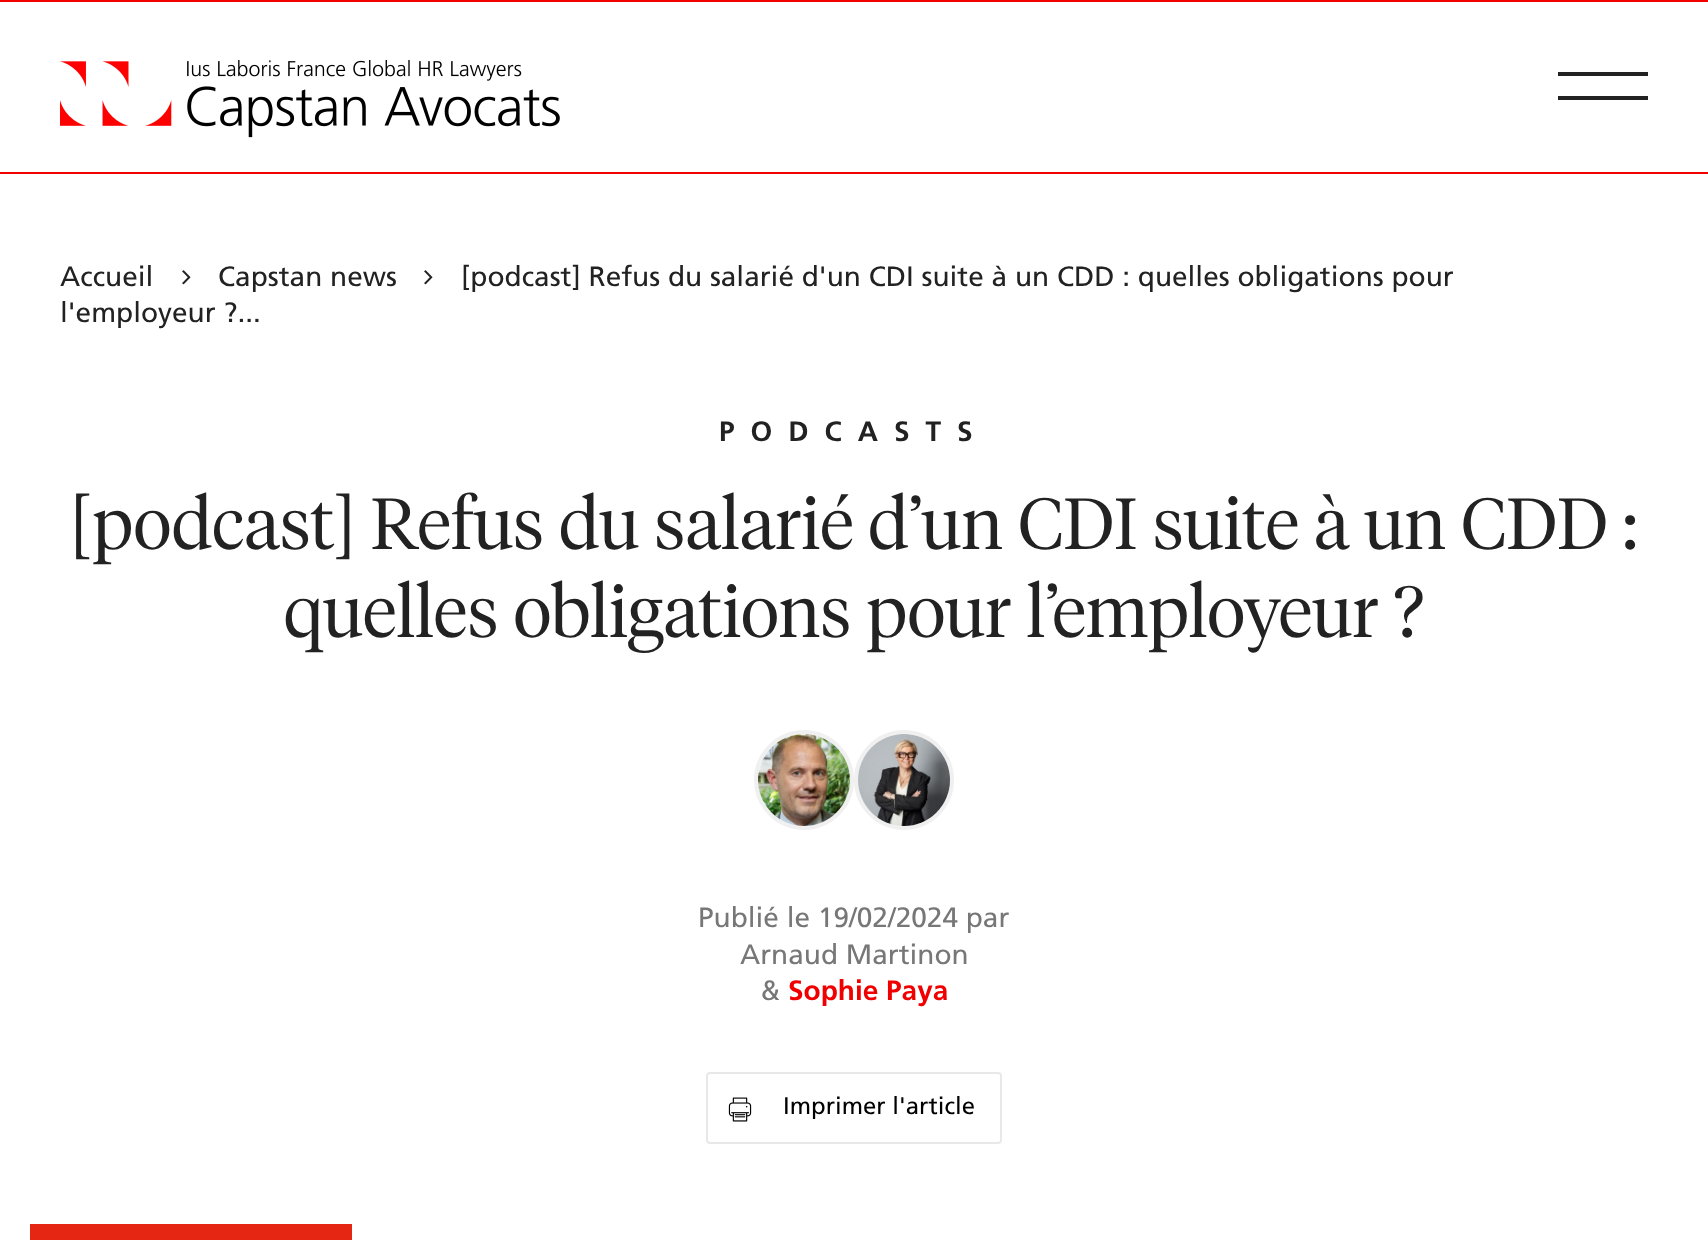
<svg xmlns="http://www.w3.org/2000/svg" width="1708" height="1240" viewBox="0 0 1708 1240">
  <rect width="100%" height="100%" fill="rgb(255,255,255)"/>
  <image x="60" y="60" width="500" height="78" href="pic1.png"/>
  <rect x="1558" y="72" width="90" height="4" fill="rgb(34,34,34)"/>
  <rect x="1558" y="96" width="90" height="4" fill="rgb(34,34,34)"/>
  <rect x="0" y="172" width="1708" height="2" fill="rgb(240,0,0)"/>
  <rect x="0" y="0" width="1708" height="2" fill="rgb(240,0,0)"/>
  <text x="60" y="286" font-family="Frutiger" font-size="28" fill="rgb(34,34,34)">Accueil</text>
  <image x="182" y="270" width="9" height="15" href="pic2.png"/>
  <text x="218" y="286" font-family="Frutiger" font-size="28" fill="rgb(34,34,34)">Capstan news</text>
  <image x="424" y="270" width="9" height="15" href="pic2.png"/>
  <g font-family="Frutiger" font-size="28" fill="rgb(34,34,34)">
    <text x="461" y="286">[podcast] Refus du salarié d'un CDI suite à un CDD : quelles obligations pour</text>
    <text x="60" y="322">l'employeur ?...</text>
  </g>
  <text x="719" y="441" font-family="Frutiger" font-size="28" font-weight="bold" letter-spacing="16" fill="rgb(34,34,34)">PODCASTS</text>
  <g font-family="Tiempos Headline" font-size="72" font-weight="300" fill="rgb(34,34,34)">
    <text x="70" y="549">[podcast] Refus du salarié d’un CDI suite à un CDD :</text>
    <text x="284" y="637">quelles obligations pour l’employeur ?</text>
  </g>
  <circle cx="804" cy="780" r="48" fill="none" stroke="rgb(240,240,240)" stroke-width="4"/>
  <circle cx="904" cy="780" r="48" fill="none" stroke="rgb(240,240,240)" stroke-width="4"/>
  <image x="758" y="734" width="92" height="92" href="pic3.png"/>
  <image x="858" y="734" width="92" height="92" href="pic4.png"/>
  <g font-family="Frutiger" font-size="28" fill="rgb(119,119,119)">
    <text x="698" y="927">Publié le 19/02/2024 par</text>
    <text x="740" y="964">Arnaud Martinon</text>
    <text x="760" y="1000">&amp;</text>
  </g>
  <text x="788" y="1000" font-family="Frutiger" font-size="28" font-weight="bold" fill="rgb(240,0,0)">Sophie Paya</text>
  <rect x="707" y="1073" width="294" height="70" rx="3" fill="none" stroke="rgb(232,232,232)" stroke-width="2"/>
  <image x="728" y="1097" width="24" height="25" href="pic5.png"/>
  <text x="783" y="1114" font-family="Frutiger" font-size="24" fill="rgb(0,0,0)">Imprimer l'article</text>
  <rect x="30" y="1224" width="322" height="16" fill="rgb(229,38,19)"/>
</svg>
